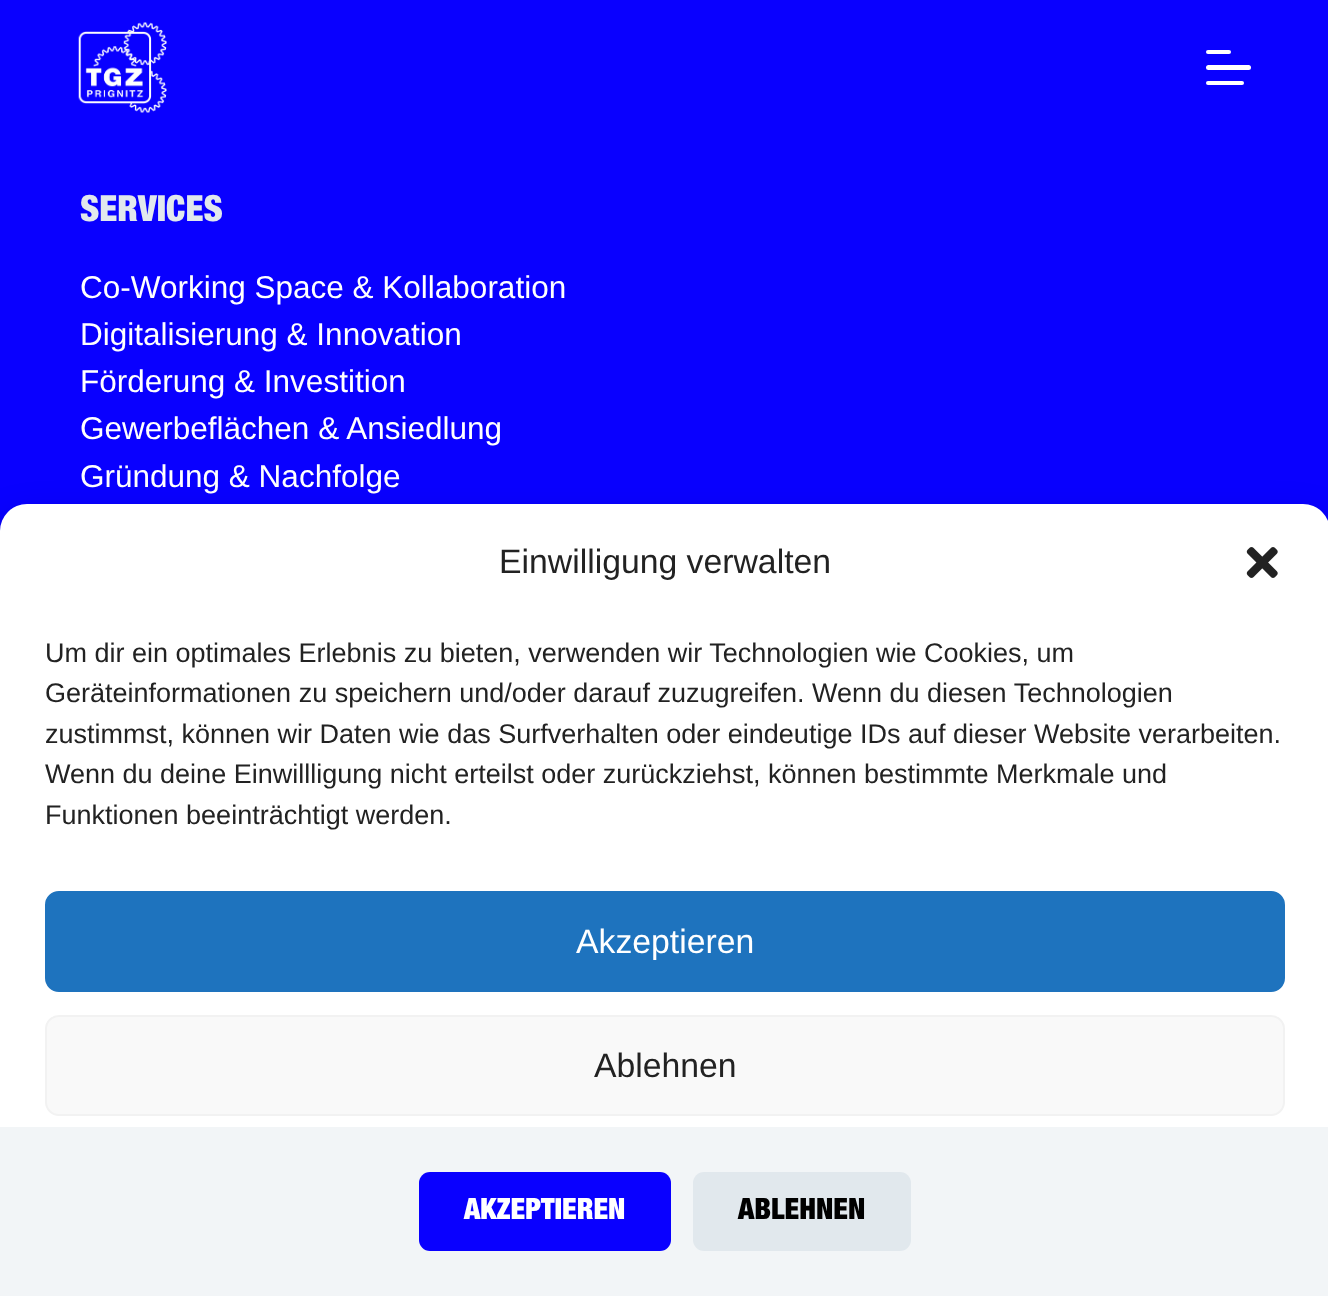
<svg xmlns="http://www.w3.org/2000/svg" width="1328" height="1296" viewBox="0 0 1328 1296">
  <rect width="100%" height="100%" fill="rgb(9,0,255)"/>
  <image x="78" y="22" width="89" height="91" href="pic1.png"/>
  <rect x="1206" y="50" width="25" height="4" rx="2" fill="rgb(255,255,255)"/>
  <rect x="1206" y="65" width="45" height="5" rx="2.5" fill="rgb(255,255,255)"/>
  <rect x="1206" y="81" width="38" height="4" rx="2" fill="rgb(255,255,255)"/>
  <text x="80" y="221" font-family="Helvetica Neue" font-size="36" font-weight="900" fill="rgb(225,232,237)">SERVICES</text>
  <g font-family="Liberation Sans" font-size="31.5" fill="rgb(255,255,255)">
    <text>
      <tspan x="80" y="298">Co-Working Space &amp; Kollaboration</tspan>
      <tspan x="80" y="345">Digitalisierung &amp; Innovation</tspan>
      <tspan x="80" y="392">Förderung &amp; Investition</tspan>
      <tspan x="80" y="439">Gewerbeflächen &amp; Ansiedlung</tspan>
      <tspan x="80" y="487">Gründung &amp; Nachfolge</tspan>
    </text>
  </g>
  <rect x="0" y="518" width="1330" height="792" rx="27" fill="rgba(0,0,0,0.23)" filter="blur(7px)"/>
  <rect x="0" y="527" width="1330" height="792" rx="27" fill="rgba(0,0,0,0.19)" filter="blur(22.5px)"/>
  <rect x="0" y="504" width="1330" height="792" rx="27" fill="rgb(255,255,255)"/>
  <text x="499" y="573" font-family="Liberation Sans" font-size="33.75" fill="rgb(34,34,34)">Einwilligung verwalten</text>
  <image x="1246" y="547" width="32" height="31" href="pic2.png"/>
  <g font-family="Liberation Sans" font-size="27" fill="rgb(34,34,34)">
    <text>
      <tspan x="45" y="662">Um dir ein optimales Erlebnis zu bieten, verwenden wir Technologien wie Cookies, um</tspan>
      <tspan x="45" y="702">Geräteinformationen zu speichern und/oder darauf zuzugreifen. Wenn du diesen Technologien</tspan>
      <tspan x="45" y="743">zustimmst, können wir Daten wie das Surfverhalten oder eindeutige IDs auf dieser Website verarbeiten.</tspan>
      <tspan x="45" y="783">Wenn du deine Einwillligung nicht erteilst oder zurückziehst, können bestimmte Merkmale und</tspan>
      <tspan x="45" y="824">Funktionen beeinträchtigt werden.</tspan>
    </text>
  </g>
  <rect x="46" y="892" width="1238" height="99" rx="13" fill="rgb(30,115,190)" stroke="rgb(30,115,190)" stroke-width="2"/>
  <text x="576" y="953" font-family="Liberation Sans" font-size="33.75" fill="rgb(255,255,255)">Akzeptieren</text>
  <rect x="46" y="1016" width="1238" height="99" rx="13" fill="rgb(249,249,249)" stroke="rgb(242,242,242)" stroke-width="2"/>
  <text x="594" y="1077" font-family="Liberation Sans" font-size="33.75" fill="rgb(34,34,34)">Ablehnen</text>
  <rect x="0" y="1127" width="1328" height="169" fill="rgb(242,245,247)"/>
  <rect x="419" y="1172" width="252" height="79" rx="11" fill="rgb(9,0,255)"/>
  <text x="464" y="1219" font-family="Helvetica Neue" font-size="29.25" font-weight="900" fill="rgb(255,255,255)">AKZEPTIEREN</text>
  <rect x="693" y="1172" width="218" height="79" rx="11" fill="rgb(225,232,237)"/>
  <text x="738" y="1219" font-family="Helvetica Neue" font-size="29.25" font-weight="900" fill="rgb(0,0,0)">ABLEHNEN</text>
</svg>
